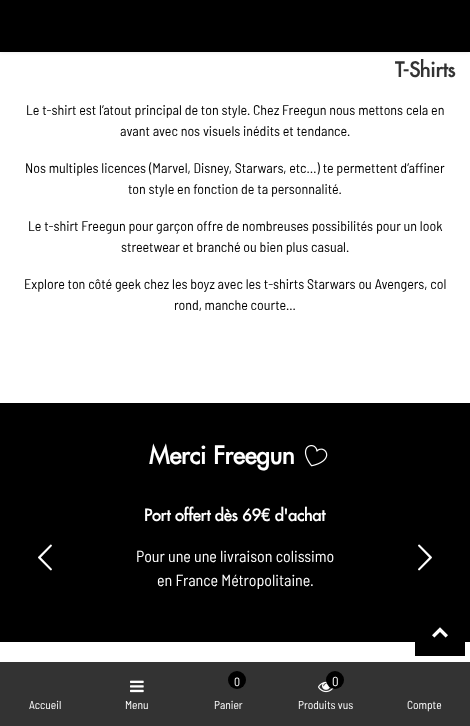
<svg xmlns="http://www.w3.org/2000/svg" width="470" height="726" viewBox="0 0 470 726">
  <rect width="100%" height="100%" fill="rgb(255,255,255)"/>
  <rect x="0" y="0" width="470" height="52" fill="rgba(0,0,0,0.1)" filter="blur(2px)"/>
  <rect x="0" y="0" width="470" height="52" fill="rgb(0,0,0)"/>
  <text x="395" y="77" font-family="Futura" font-size="20" font-weight="bold" fill="rgb(51,51,51)">T-Shirts</text>
  <g font-family="Barlow Semi Condensed" font-size="14" fill="rgb(0,0,0)">
    <text x="26" y="115">Le t-shirt est l’atout principal de ton style. Chez Freegun nous mettons cela en</text>
    <text x="120" y="136">avant avec nos visuels inédits et tendance.</text>
    <text x="25" y="173">Nos multiples licences (Marvel, Disney, Starwars, etc…) te permettent d’affiner</text>
    <text x="128" y="194">ton style en fonction de ta personnalité.</text>
    <text x="28" y="231">Le t-shirt Freegun pour garçon offre de nombreuses possibilités pour un look</text>
    <text x="121" y="252">streetwear et branché ou bien plus casual.</text>
    <text x="24" y="289">Explore ton côté geek chez les boyz avec les t-shirts Starwars ou Avengers, col</text>
    <text x="174" y="310">rond, manche courte...</text>
  </g>
  <rect x="0" y="403" width="470" height="239" fill="rgb(0,0,0)"/>
  <text x="149" y="464" font-family="Futura" font-size="24" font-weight="bold" fill="rgb(255,255,255)">Merci Freegun</text>
  <image x="304" y="445" width="24" height="22" href="pic1.png"/>
  <image x="38" y="544" width="14" height="27" href="pic2.png"/>
  <text x="144" y="521" font-family="Futura" font-size="16" font-weight="bold" fill="rgb(255,255,255)">Port offert dès 69€ d'achat</text>
  <g font-family="Barlow Semi Condensed" font-size="16" fill="rgb(255,255,255)">
    <text x="136" y="562">Pour une une livraison colissimo</text>
    <text x="157" y="586">en France Métropolitaine.</text>
  </g>
  <image x="418" y="544" width="14" height="27" href="pic3.png"/>
  <rect x="415" y="642" width="50" height="14" fill="rgb(0,0,0)"/>
  <image x="432" y="627" width="16" height="11" href="pic4.png"/>
  <rect x="0" y="662" width="470" height="64" fill="rgb(51,51,51)"/>
  <text x="29" y="709" font-family="Barlow Semi Condensed" font-size="11.5" fill="rgb(255,255,255)">Accueil</text>
  <image x="130" y="680" width="14" height="13" href="pic5.png"/>
  <text x="125" y="709" font-family="Barlow Semi Condensed" font-size="11.5" fill="rgb(255,255,255)">Menu</text>
  <circle cx="237" cy="680" r="9" fill="rgb(0,0,0)"/>
  <text x="234" y="686" font-family="Barlow Semi Condensed" font-size="12" fill="rgb(255,255,255)">0</text>
  <text x="214" y="709" font-family="Barlow Semi Condensed" font-size="11.5" fill="rgb(255,255,255)">Panier</text>
  <image x="318" y="681" width="16" height="12" href="pic6.png"/>
  <circle cx="335" cy="680" r="9" fill="rgb(0,0,0)"/>
  <text x="332" y="686" font-family="Barlow Semi Condensed" font-size="13" fill="rgb(255,255,255)">0</text>
  <g font-family="Barlow Semi Condensed" font-size="11.5" fill="rgb(255,255,255)">
    <text x="298" y="709">Produits vus</text>
    <text x="407" y="709">Compte</text>
  </g>
</svg>
